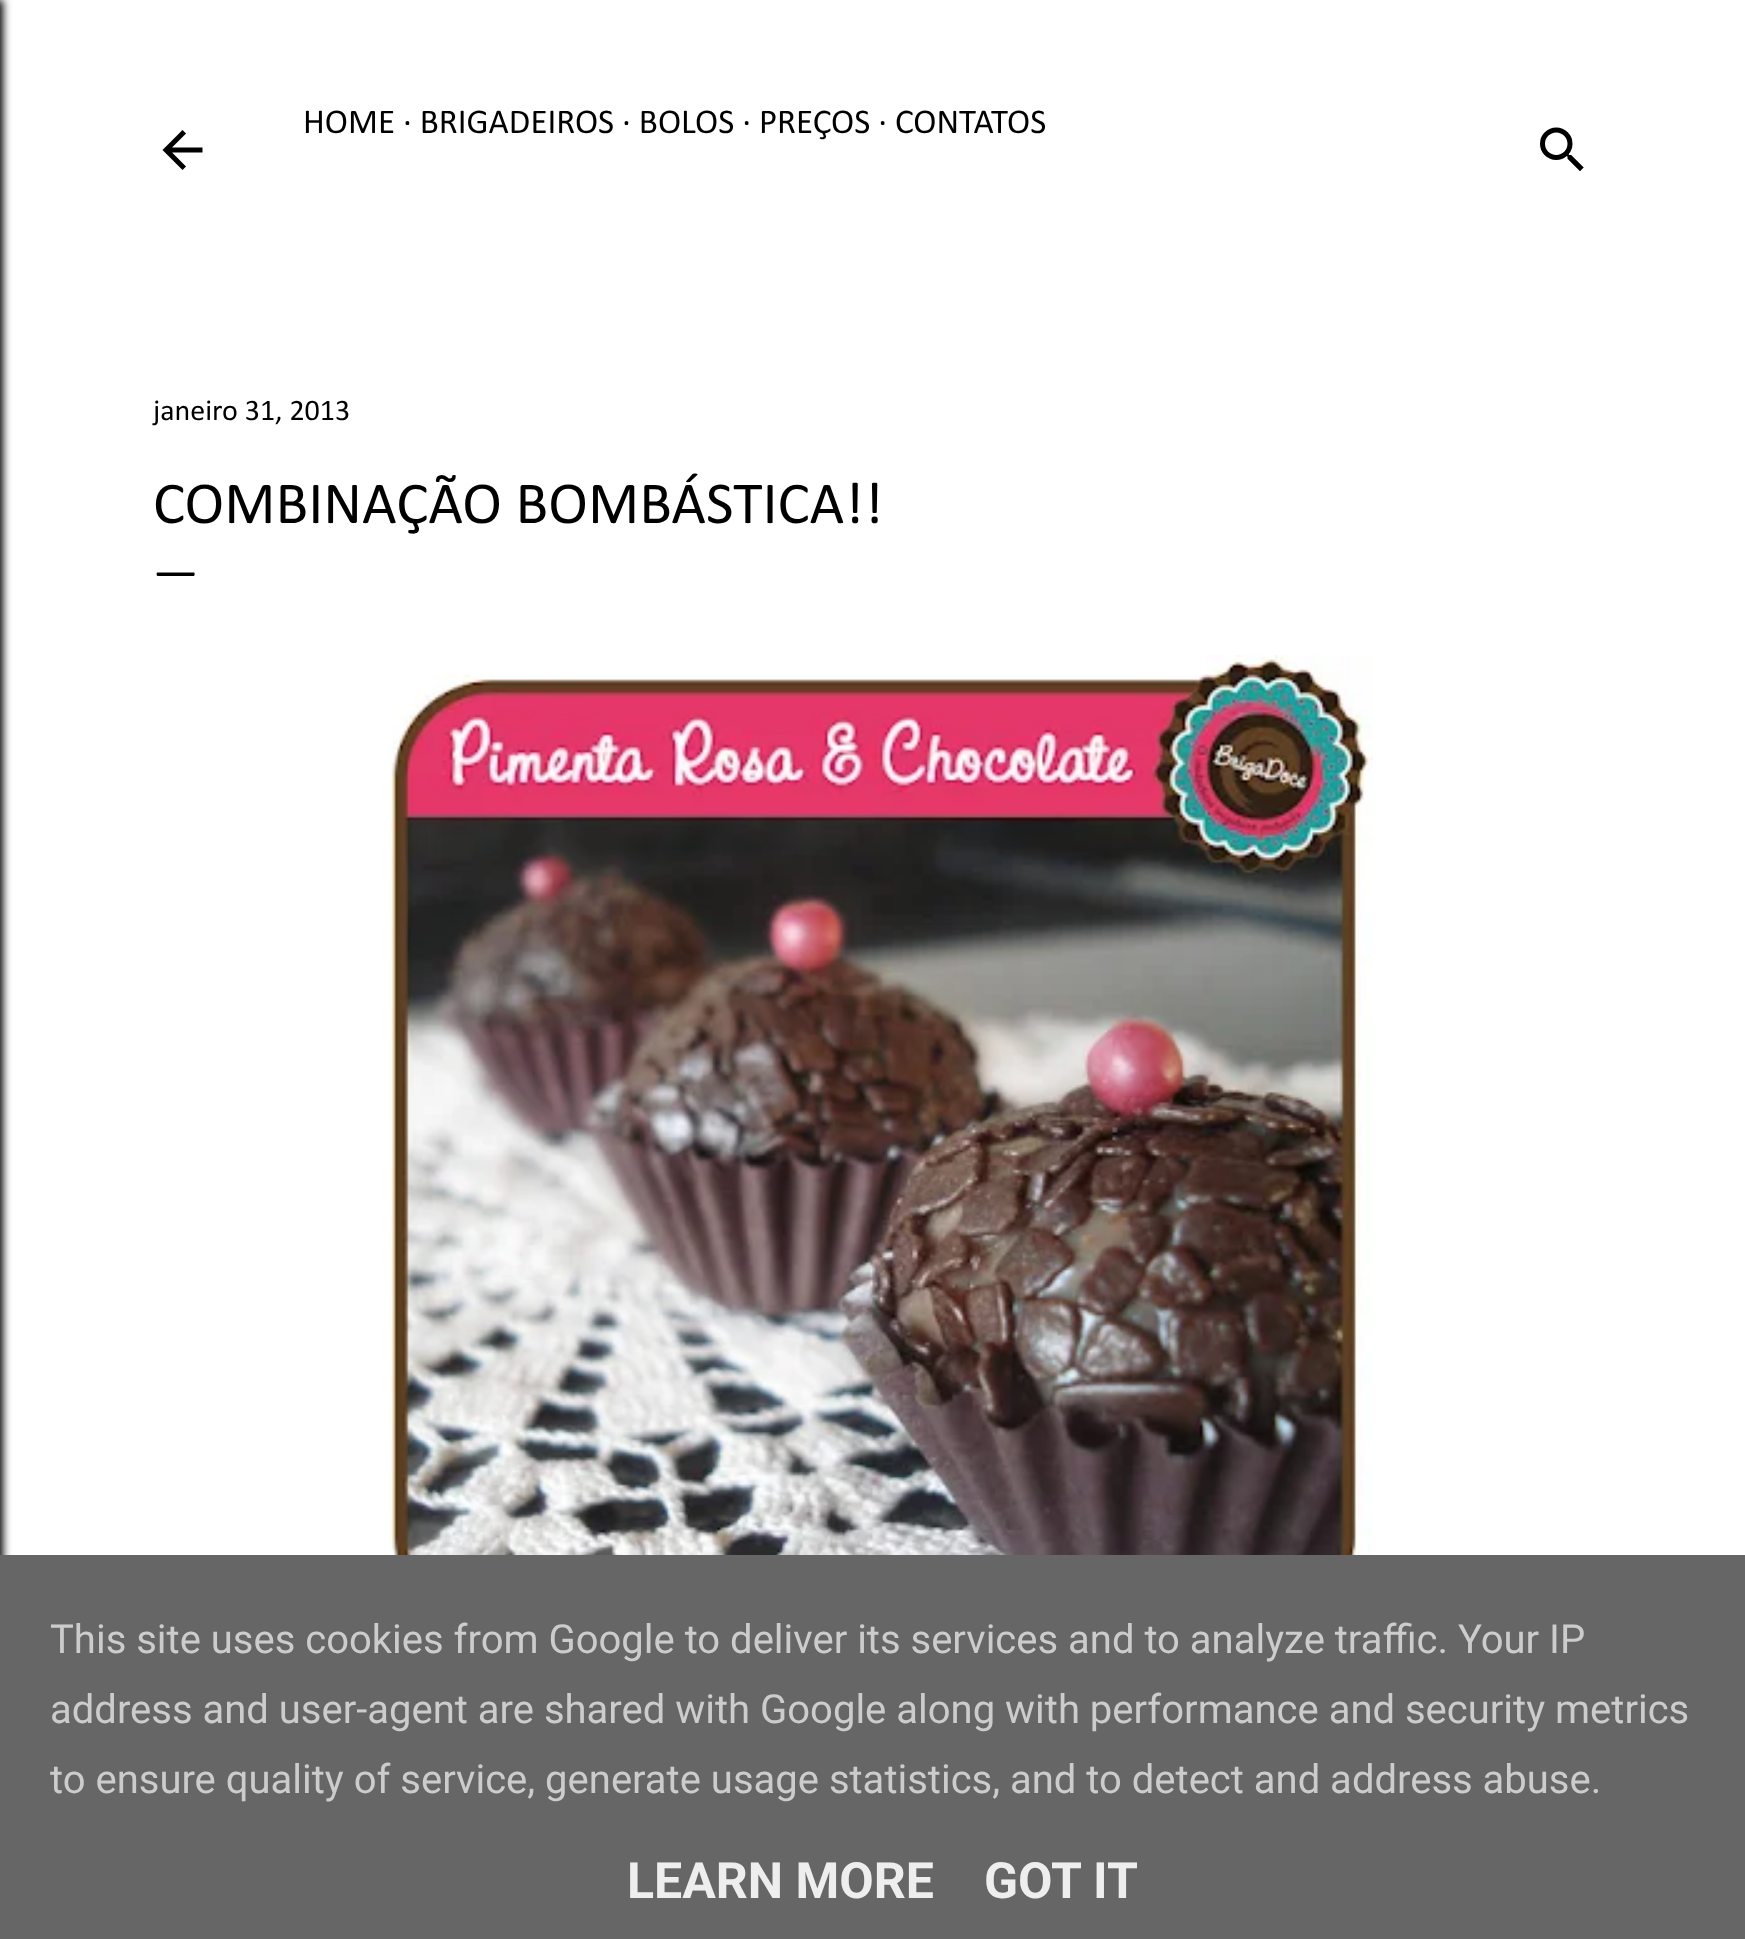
<svg xmlns="http://www.w3.org/2000/svg" width="1745" height="1939" viewBox="0 0 1745 1939">
  <rect width="100%" height="100%" fill="rgb(255,255,255)"/>
  <rect x="-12" y="0" width="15" height="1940" fill="rgb(0,0,0)" filter="blur(4px)"/>
  <image x="162" y="130" width="41" height="40" href="pic1.png"/>
  <text x="303" y="133" font-family="Calibri" font-size="35" fill="rgb(0,0,0)">HOME · BRIGADEIROS · BOLOS · PREÇOS · CONTATOS</text>
  <image x="1540" y="127" width="44" height="45" href="pic2.png"/>
  <text x="153" y="420" font-family="Calibri" font-size="30" fill="rgb(0,0,0)">janeiro 31, 2013</text>
  <text x="153" y="523" font-family="Calibri" font-size="60" fill="rgb(0,0,0)">COMBINAÇÃO BOMBÁSTICA!!</text>
  <text x="153" y="588" font-family="Calibri" font-size="50" fill="rgb(0,0,0)">—</text>
  <image x="389" y="655" width="984" height="900" href="pic3.png"/>
  <rect x="0" y="1555" width="1745" height="384" fill="rgb(102,102,102)"/>
  <g font-family="Roboto" font-size="40" fill="rgb(204,204,204)">
    <text>
      <tspan x="50" y="1653">This site uses cookies from Google to deliver its services and to analyze traffic. Your IP</tspan>
      <tspan x="50" y="1723">address and user-agent are shared with Google along with performance and security metrics</tspan>
      <tspan x="50" y="1793">to ensure quality of service, generate usage statistics, and to detect and address abuse.</tspan>
    </text>
  </g>
  <g font-family="Roboto" font-size="50" font-weight="bold" fill="rgb(238,238,238)">
    <text x="627" y="1898">LEARN MORE</text>
    <text x="984" y="1898">GOT IT</text>
  </g>
</svg>
